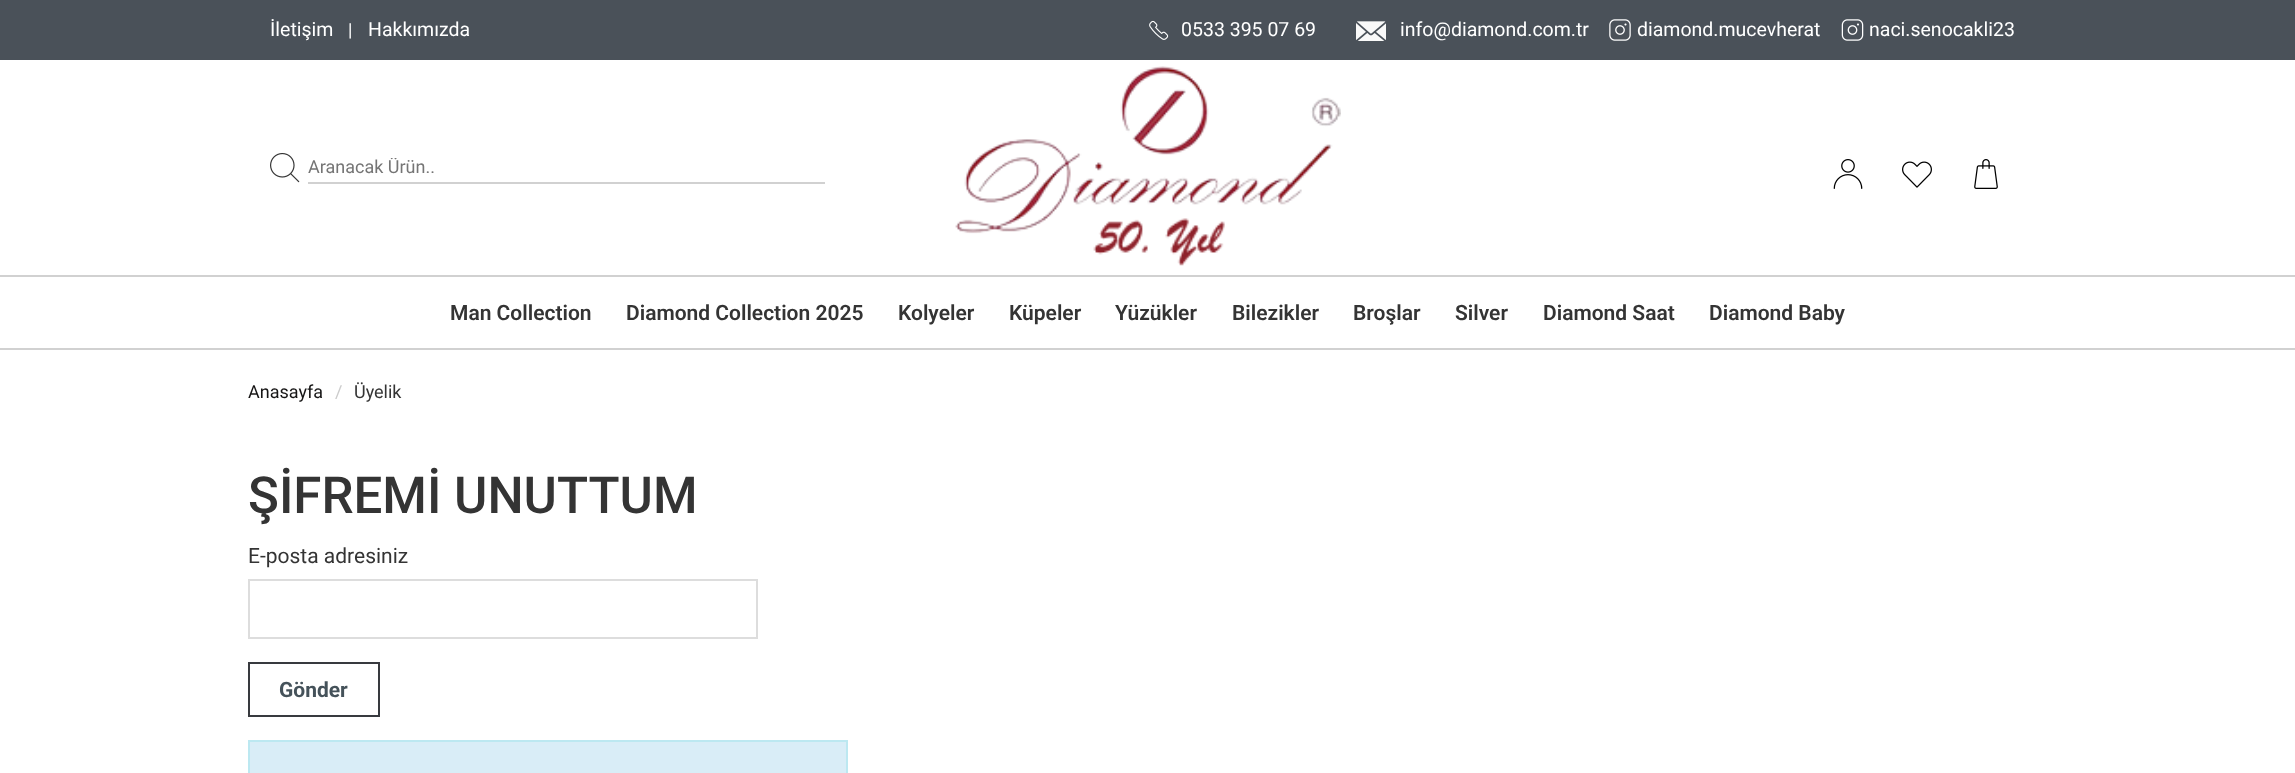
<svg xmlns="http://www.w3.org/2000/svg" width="2295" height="773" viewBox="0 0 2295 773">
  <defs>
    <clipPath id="clip1"><rect x="308" y="158" width="517" height="21"/></clipPath>
  </defs>
  <rect width="100%" height="100%" fill="rgb(255,255,255)"/>
  <rect x="0" y="348" width="2295" height="2" fill="rgb(209,209,209)"/>
  <rect x="0" y="0" width="2295" height="60" fill="rgb(74,81,89)"/>
  <text x="270" y="36" font-family="Roboto" font-size="19.5" fill="rgb(255,255,255)">İletişim</text>
  <text x="348" y="36" font-family="Roboto" font-size="18" fill="rgb(255,255,255)">|</text>
  <text x="368" y="36" font-family="Roboto" font-size="19.5" fill="rgb(255,255,255)">Hakkımızda</text>
  <image x="1149" y="20" width="20" height="20" href="pic1.png"/>
  <text x="1181" y="36" font-family="Roboto" font-size="19.5" fill="rgb(255,255,255)">0533 395 07 69</text>
  <image x="1356" y="21" width="30" height="20" href="pic2.png"/>
  <text x="1400" y="36" font-family="Roboto" font-size="19.5" fill="rgb(255,255,255)">info@diamond.com.tr</text>
  <image x="1609" y="19" width="22" height="22" href="pic3.png"/>
  <text x="1637" y="36" font-family="Roboto" font-size="19.5" fill="rgb(255,255,255)">diamond.mucevherat</text>
  <image x="1841" y="19" width="23" height="22" href="pic4.png"/>
  <text x="1869" y="36" font-family="Roboto" font-size="19.5" fill="rgb(255,255,255)">naci.senocakli23</text>
  <image x="270" y="153" width="30" height="30" href="pic5.png"/>
  <rect x="308" y="182" width="517" height="2" fill="rgb(209,209,209)"/>
  <g clip-path="url(#clip1)">
    <text x="308" y="173" font-family="Roboto" font-size="18" fill="rgb(117,117,117)">Aranacak Ürün..</text>
  </g>
  <image x="955" y="66" width="386" height="200" href="pic6.png"/>
  <image x="1833" y="159" width="30" height="30" href="pic7.png"/>
  <image x="1902" y="161" width="30" height="27" href="pic8.png"/>
  <image x="1974" y="159" width="24" height="30" href="pic9.png"/>
  <rect x="0" y="275" width="2295" height="2" fill="rgb(209,209,209)"/>
  <g font-family="Roboto" font-size="21" font-weight="600" fill="rgb(52,52,52)">
    <text x="450" y="320">Man Collection</text>
    <text x="626" y="320">Diamond Collection 2025</text>
    <text x="898" y="320">Kolyeler</text>
    <text x="1009" y="320">Küpeler</text>
    <text x="1115" y="320">Yüzükler</text>
    <text x="1232" y="320">Bilezikler</text>
    <text x="1353" y="320">Broşlar</text>
    <text x="1455" y="320">Silver</text>
    <text x="1543" y="320">Diamond Saat</text>
    <text x="1709" y="320">Diamond Baby</text>
  </g>
  <text x="248" y="398" font-family="Roboto" font-size="18" fill="rgb(22,21,21)">Anasayfa</text>
  <text x="335" y="398" font-family="Roboto" font-size="18" fill="rgb(204,204,204)">/</text>
  <text x="354" y="398" font-family="Roboto" font-size="18" fill="rgb(52,52,52)">Üyelik</text>
  <text x="248" y="513" font-family="Roboto" font-size="51" font-weight="500" fill="rgb(52,52,52)">ŞİFREMİ UNUTTUM</text>
  <text x="248" y="563" font-family="Roboto" font-size="21" fill="rgb(52,52,52)">E-posta adresiniz</text>
  <rect x="249" y="580" width="508" height="58" fill="none" stroke="rgb(221,221,221)" stroke-width="2"/>
  <rect x="249" y="663" width="130" height="53" fill="none" stroke="rgb(56,58,63)" stroke-width="2"/>
  <text x="279" y="697" font-family="Roboto" font-size="21" font-weight="bold" fill="rgb(69,82,90)">Gönder</text>
  <rect x="249" y="741" width="598" height="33" fill="rgb(217,237,247)" stroke="rgb(188,232,241)" stroke-width="2"/>
</svg>
